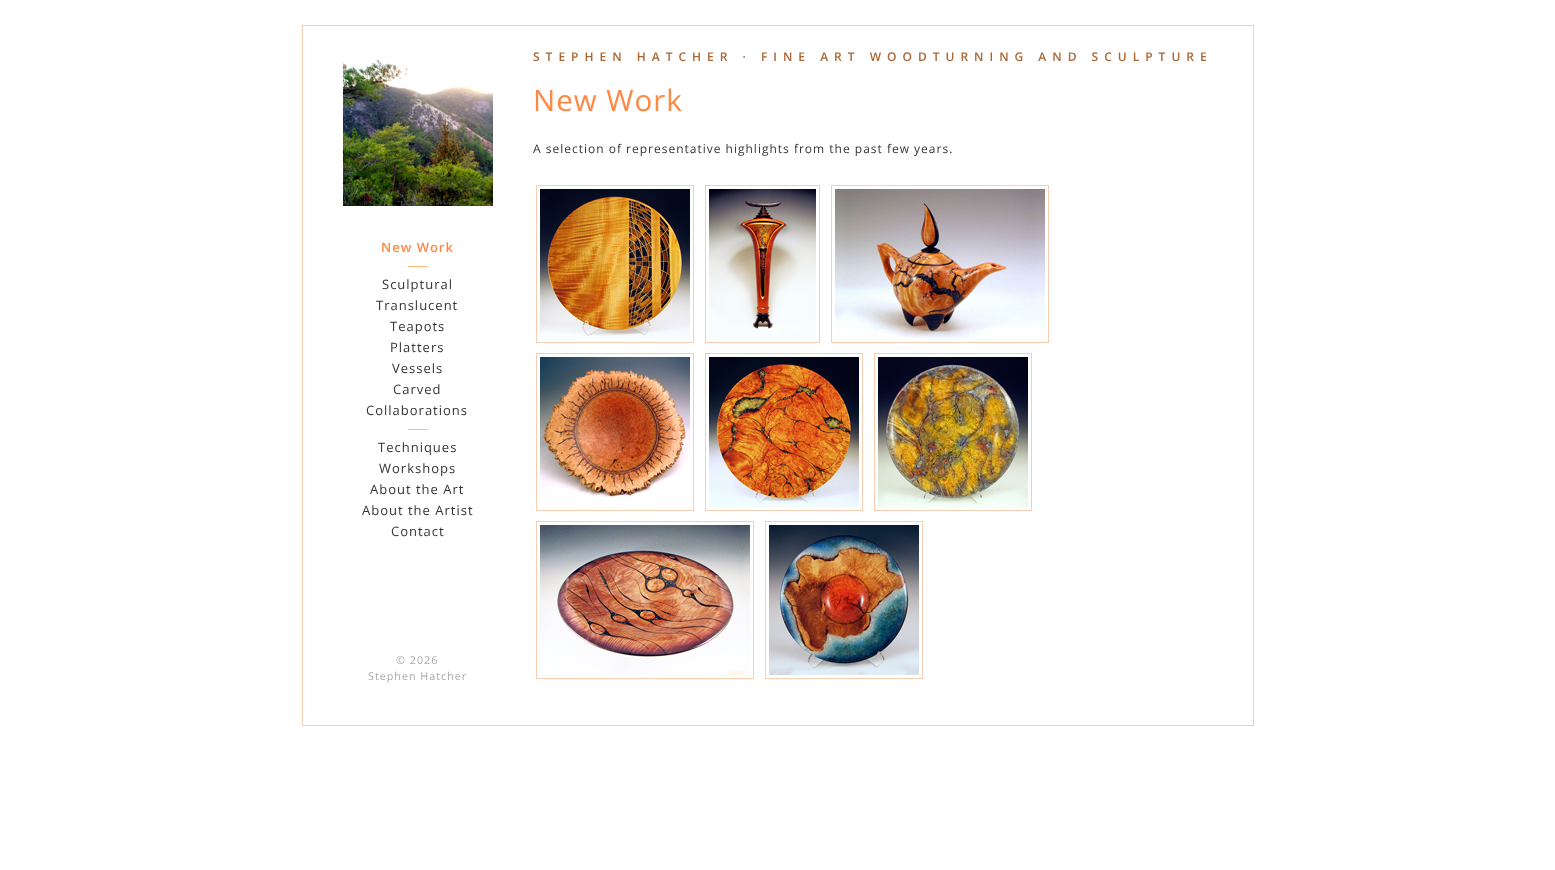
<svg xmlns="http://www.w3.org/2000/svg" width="1555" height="870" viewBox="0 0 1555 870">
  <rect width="100%" height="100%" fill="rgb(255,255,255)"/>
  <rect x="302.5" y="25.5" width="951" height="700" fill="none" stroke="rgb(247,206,177)"/>
  <text x="533" y="61" font-family="Open Sans" font-size="12" font-weight="600" letter-spacing="6" fill="rgb(170,102,51)">STEPHEN HATCHER · FINE ART WOODTURNING AND SCULPTURE</text>
  <text x="533" y="111" font-family="Open Sans" font-size="29.5" letter-spacing="1" fill="rgb(255,136,68)">New Work</text>
  <text x="533" y="153" font-family="Open Sans" font-size="12" letter-spacing="1" fill="rgb(50,53,55)">A selection of representative highlights from the past few years.</text>
  <rect x="536.5" y="185.5" width="157" height="157" fill="none" stroke="rgb(247,206,177)"/>
  <image x="540" y="189" width="150" height="150" href="pic1.png"/>
  <rect x="705.5" y="185.5" width="114" height="157" fill="none" stroke="rgb(247,206,177)"/>
  <image x="709" y="189" width="107" height="150" href="pic2.png"/>
  <rect x="831.5" y="185.5" width="217" height="157" fill="none" stroke="rgb(247,206,177)"/>
  <image x="835" y="189" width="210" height="150" href="pic3.png"/>
  <rect x="536.5" y="353.5" width="157" height="157" fill="none" stroke="rgb(247,206,177)"/>
  <image x="540" y="357" width="150" height="144" href="pic4.png"/>
  <rect x="705.5" y="353.5" width="157" height="157" fill="none" stroke="rgb(247,206,177)"/>
  <image x="709" y="357" width="150" height="150" href="pic5.png"/>
  <rect x="874.5" y="353.5" width="157" height="157" fill="none" stroke="rgb(247,206,177)"/>
  <image x="878" y="357" width="150" height="150" href="pic6.png"/>
  <rect x="536.5" y="521.5" width="217" height="157" fill="none" stroke="rgb(247,206,177)"/>
  <image x="540" y="525" width="210" height="150" href="pic7.png"/>
  <rect x="765.5" y="521.5" width="157" height="157" fill="none" stroke="rgb(247,206,177)"/>
  <image x="769" y="525" width="150" height="150" href="pic8.png"/>
  <image x="343" y="58" width="150" height="148" href="pic9.png"/>
  <text x="381" y="252" font-family="Open Sans" font-size="13" font-weight="600" letter-spacing="1" fill="rgb(255,136,68)">New Work</text>
  <rect x="408" y="266" width="20" height="1" fill="rgb(255,187,119)"/>
  <g font-family="Open Sans" font-size="13" letter-spacing="1" fill="rgb(50,53,55)">
    <text x="382" y="289">Sculptural</text>
    <text x="376" y="310">Translucent</text>
    <text>
      <tspan x="390" y="331">Teapots</tspan>
      <tspan x="390" y="352">Platters</tspan>
    </text>
    <text x="392" y="373">Vessels</text>
    <text x="393" y="394">Carved</text>
    <text x="366" y="415">Collaborations</text>
  </g>
  <rect x="408" y="429" width="20" height="1" fill="rgb(255,187,119)"/>
  <g font-family="Open Sans" font-size="13" letter-spacing="1" fill="rgb(50,53,55)">
    <text x="378" y="452">Techniques</text>
    <text x="379" y="473">Workshops</text>
    <text x="370" y="494">About the Art</text>
    <text x="362" y="515">About the Artist</text>
    <text x="391" y="536">Contact</text>
  </g>
  <g font-family="Open Sans" font-size="10.75" letter-spacing="1" fill="rgb(168,168,168)">
    <text x="396" y="664">© 2026</text>
    <text x="368" y="680">Stephen Hatcher</text>
  </g>
</svg>
